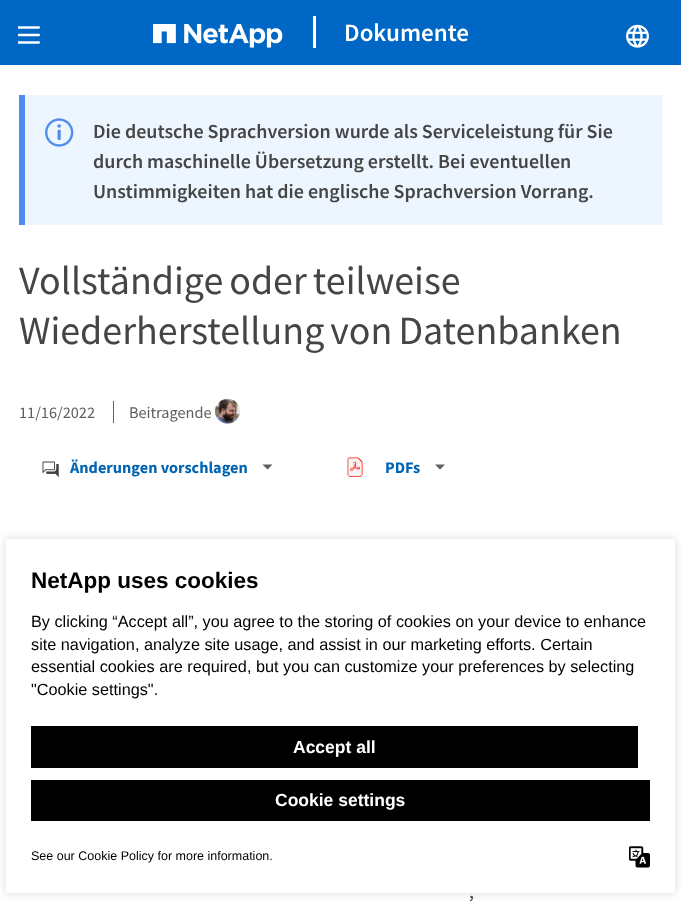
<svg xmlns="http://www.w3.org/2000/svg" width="681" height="904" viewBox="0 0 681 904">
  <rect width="100%" height="100%" fill="rgb(255,255,255)"/>
  <rect x="0" y="0" width="681" height="65" fill="rgb(0,103,197)"/>
  <image x="18" y="26" width="22" height="18" href="pic1.png"/>
  <image x="153" y="24" width="130" height="24" href="pic2.png"/>
  <rect x="313" y="16" width="3" height="32" fill="rgb(255,255,255)"/>
  <text x="344" y="41" font-family="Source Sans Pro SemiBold" font-size="25" font-weight="600" fill="rgb(255,255,255)">Dokumente</text>
  <image x="626" y="24" width="23" height="24" href="pic3.png"/>
  <rect x="25" y="95" width="638" height="130" fill="rgb(237,246,255)"/>
  <rect x="19" y="95" width="6" height="130" fill="rgb(81,139,236)"/>
  <image x="45" y="118" width="29" height="29" href="pic4.png"/>
  <g font-family="Source Sans Pro SemiBold" font-size="20" font-weight="600" fill="rgb(69,69,69)">
    <text>
      <tspan x="93" y="138">Die deutsche Sprachversion wurde als Serviceleistung für Sie</tspan>
      <tspan x="93" y="168">durch maschinelle Übersetzung erstellt. Bei eventuellen</tspan>
      <tspan x="93" y="198">Unstimmigkeiten hat die englische Sprachversion Vorrang.</tspan>
    </text>
  </g>
  <g font-family="Source Sans Pro" font-size="40" fill="rgb(69,69,69)">
    <text>
      <tspan x="19" y="294" word-spacing="-2">Vollständige oder teilweise</tspan>
      <tspan x="19" y="344" word-spacing="-2">Wiederherstellung von Datenbanken</tspan>
    </text>
  </g>
  <text x="19" y="418" font-family="Source Sans Pro" font-size="16.25" fill="rgb(94,94,94)">11/16/2022</text>
  <rect x="113" y="401" width="1" height="22" fill="rgb(104,104,104)"/>
  <text x="129" y="418" font-family="Source Sans Pro" font-size="16.25" fill="rgb(94,94,94)">Beitragende</text>
  <image x="215" y="398" width="25" height="26" href="pic5.png"/>
  <image x="42" y="461" width="17" height="17" href="pic6.png"/>
  <text x="70" y="473" font-family="Source Sans Pro" font-size="16.25" font-weight="bold" fill="rgb(0,101,179)">Änderungen vorschlagen</text>
  <path d="M267.5 469.5L262.5 464.5H272.5Z" fill="rgb(94,94,94)"/>
  <image x="347" y="457" width="16" height="20" href="pic7.png"/>
  <text x="385" y="473" font-family="Source Sans Pro" font-size="16.25" font-weight="bold" fill="rgb(0,101,179)">PDFs</text>
  <path d="M440 469.5L435 464.5H445Z" fill="rgb(94,94,94)"/>
  <text x="469" y="898" font-family="Source Sans Pro" font-size="20" fill="rgb(69,69,69)">,</text>
  <rect x="6" y="539" width="669" height="354" fill="rgba(0,0,0,0.15)" filter="blur(5px)"/>
  <rect x="6" y="539" width="669" height="354" fill="rgb(255,255,255)"/>
  <text x="31" y="588" font-family="Liberation Sans" font-size="22.5" font-weight="bold" fill="rgb(0,0,0)">NetApp uses cookies</text>
  <g font-family="Liberation Sans" font-size="16.25" fill="rgb(0,0,0)">
    <text>
      <tspan x="31" y="627">By clicking “Accept all”, you agree to the storing of cookies on your device to enhance</tspan>
      <tspan x="31" y="650">site navigation, analyze site usage, and assist in our marketing efforts. Certain</tspan>
      <tspan x="31" y="672">essential cookies are required, but you can customize your preferences by selecting</tspan>
      <tspan x="31" y="695">"Cookie settings".</tspan>
    </text>
  </g>
  <rect x="31" y="726" width="607" height="42" fill="rgb(0,0,0)"/>
  <text x="293" y="753" font-family="Liberation Sans" font-size="17.5" font-weight="bold" fill="rgb(255,255,255)">Accept all</text>
  <rect x="31" y="780" width="619" height="41" fill="rgb(0,0,0)"/>
  <text x="275" y="806" font-family="Liberation Sans" font-size="17.5" font-weight="bold" fill="rgb(255,255,255)">Cookie settings</text>
  <text x="31" y="860" font-family="Liberation Sans" font-size="12.5" fill="rgb(0,0,0)">See our Cookie Policy for more information.</text>
  <image x="629" y="846" width="21" height="22" href="pic8.png"/>
</svg>
